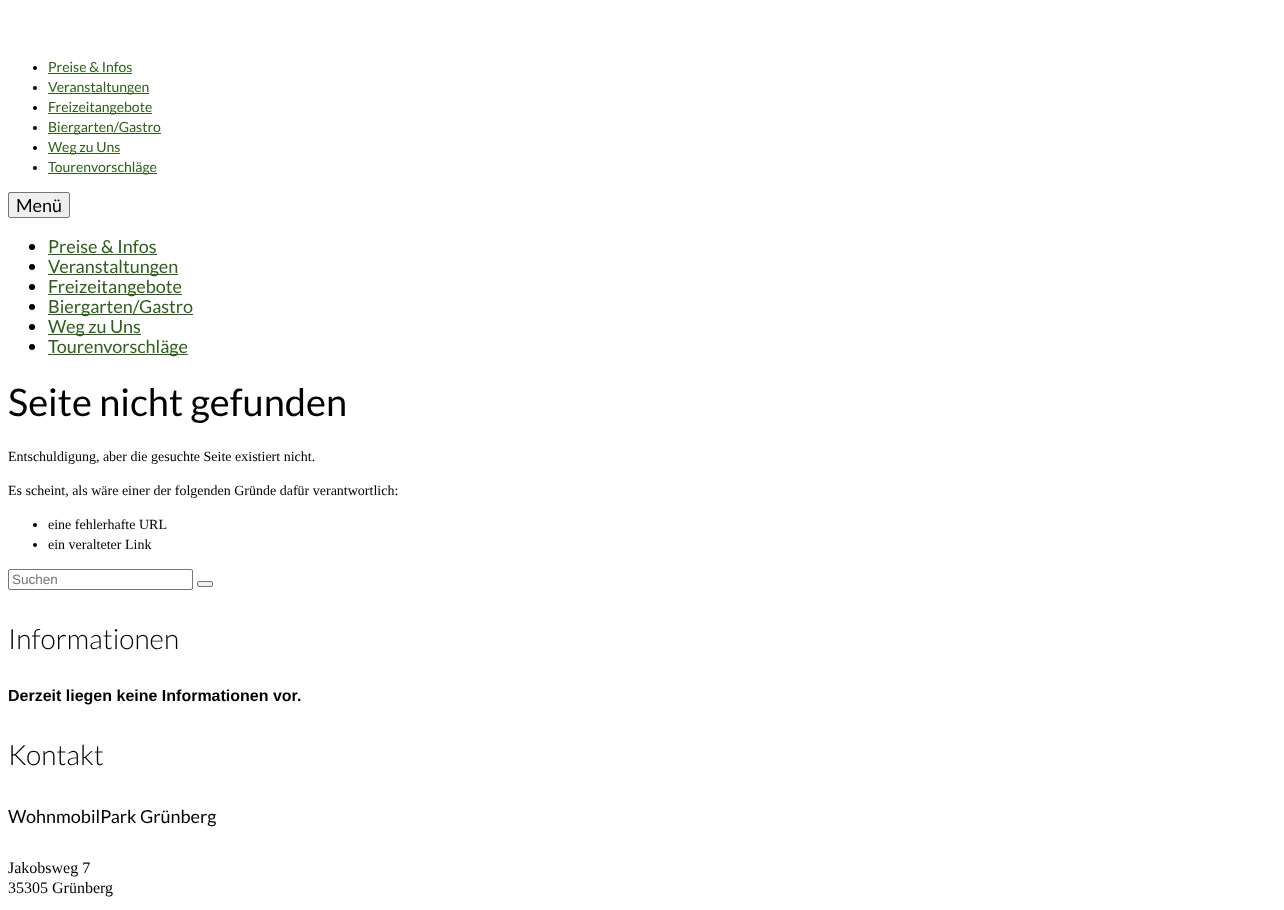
<svg xmlns="http://www.w3.org/2000/svg" width="1284" height="910" viewBox="0 0 1284 910">
  <rect width="100%" height="100%" fill="rgb(255,255,255)"/>
  <circle cx="35" cy="68" r="2" fill="rgb(0,0,0)"/>
  <text x="48" y="72" font-family="Lato" font-size="14" fill="rgb(45,97,25)">Preise &amp; Infos</text>
  <rect x="48" y="73" width="84" height="1" fill="rgb(45,97,25)"/>
  <circle cx="35" cy="88" r="2" fill="rgb(0,0,0)"/>
  <rect x="48" y="93" width="101" height="1" fill="rgb(45,97,25)"/>
  <text x="48" y="92" font-family="Lato" font-size="14" fill="rgb(45,97,25)">Veranstaltungen</text>
  <circle cx="35" cy="108" r="2" fill="rgb(0,0,0)"/>
  <rect x="48" y="113" width="104" height="1" fill="rgb(45,97,25)"/>
  <text x="48" y="112" font-family="Lato" font-size="14" fill="rgb(45,97,25)">Freizeitangebote</text>
  <circle cx="35" cy="128" r="2" fill="rgb(0,0,0)"/>
  <rect x="48" y="133" width="113" height="1" fill="rgb(45,97,25)"/>
  <text x="48" y="132" font-family="Lato" font-size="14" fill="rgb(45,97,25)">Biergarten/Gastro</text>
  <circle cx="35" cy="148" r="2" fill="rgb(0,0,0)"/>
  <rect x="48" y="153" width="72" height="1" fill="rgb(45,97,25)"/>
  <text x="48" y="152" font-family="Lato" font-size="14" fill="rgb(45,97,25)">Weg zu Uns</text>
  <circle cx="35" cy="168" r="2" fill="rgb(0,0,0)"/>
  <rect x="48" y="173" width="109" height="1" fill="rgb(45,97,25)"/>
  <text x="48" y="172" font-family="Lato" font-size="14" fill="rgb(45,97,25)">Tourenvorschläge</text>
  <rect x="8.5" y="192.5" width="61" height="25" rx="1.5" fill="rgb(239,239,239)" stroke="rgb(118,118,118)"/>
  <text x="16" y="212" font-family="Lato" font-size="18" fill="rgb(0,0,0)">Menü</text>
  <circle cx="32" cy="247" r="3" fill="rgb(0,0,0)"/>
  <text x="48" y="253" font-family="Lato" font-size="18" fill="rgb(45,97,25)">Preise &amp; Infos</text>
  <rect x="48" y="254" width="109" height="1" fill="rgb(45,97,25)"/>
  <circle cx="32" cy="267" r="3" fill="rgb(0,0,0)"/>
  <rect x="48" y="274" width="130" height="1" fill="rgb(45,97,25)"/>
  <text x="48" y="273" font-family="Lato" font-size="18" fill="rgb(45,97,25)">Veranstaltungen</text>
  <circle cx="32" cy="287" r="3" fill="rgb(0,0,0)"/>
  <rect x="48" y="294" width="134" height="1" fill="rgb(45,97,25)"/>
  <text x="48" y="293" font-family="Lato" font-size="18" fill="rgb(45,97,25)">Freizeitangebote</text>
  <circle cx="32" cy="307" r="3" fill="rgb(0,0,0)"/>
  <rect x="48" y="314" width="145" height="1" fill="rgb(45,97,25)"/>
  <text x="48" y="313" font-family="Lato" font-size="18" fill="rgb(45,97,25)">Biergarten/Gastro</text>
  <circle cx="32" cy="327" r="3" fill="rgb(0,0,0)"/>
  <rect x="48" y="334" width="93" height="1" fill="rgb(45,97,25)"/>
  <text x="48" y="333" font-family="Lato" font-size="18" fill="rgb(45,97,25)">Weg zu Uns</text>
  <circle cx="32" cy="347" r="3" fill="rgb(0,0,0)"/>
  <rect x="48" y="354" width="140" height="1" fill="rgb(45,97,25)"/>
  <text x="48" y="353" font-family="Lato" font-size="18" fill="rgb(45,97,25)">Tourenvorschläge</text>
  <text x="8" y="416" font-family="Lato" font-size="38" fill="rgb(0,0,0)">Seite nicht gefunden</text>
  <g font-family="Liberation Serif" font-size="14" fill="rgb(0,0,0)">
    <text x="8" y="461">Entschuldigung, aber die gesuchte Seite existiert nicht.</text>
    <text x="8" y="495">Es scheint, als wäre einer der folgenden Gründe dafür verantwortlich:</text>
  </g>
  <circle cx="35" cy="525" r="2" fill="rgb(0,0,0)"/>
  <text x="48" y="529" font-family="Liberation Serif" font-size="14" fill="rgb(0,0,0)">eine fehlerhafte URL</text>
  <circle cx="35" cy="545" r="2" fill="rgb(0,0,0)"/>
  <text x="48" y="549" font-family="Liberation Serif" font-size="14" fill="rgb(0,0,0)">ein veralteter Link</text>
  <rect x="8.5" y="569.5" width="184" height="20" rx="1.5" fill="none" stroke="rgb(118,118,118)"/>
  <text x="12" y="584" font-family="Liberation Sans" font-size="13.5" fill="rgb(117,117,117)">Suchen</text>
  <rect x="197.5" y="581.5" width="15" height="5" rx="1.5" fill="rgb(239,239,239)" stroke="rgb(118,118,118)"/>
  <text x="8" y="649" font-family="Lato" font-size="28" font-weight="300" fill="rgb(0,0,0)">Informationen</text>
  <text x="8" y="701" font-family="Liberation Sans" font-size="16" font-weight="bold" fill="rgb(0,0,0)">Derzeit liegen keine Informationen vor.</text>
  <text x="8" y="765" font-family="Lato" font-size="28" font-weight="300" fill="rgb(0,0,0)">Kontakt</text>
  <text x="8" y="823" font-family="Lato" font-size="18" fill="rgb(0,0,0)">WohnmobilPark Grünberg</text>
  <g font-family="Liberation Serif" font-size="16" fill="rgb(0,0,0)">
    <text>
      <tspan x="8" y="873">Jakobsweg 7</tspan>
      <tspan x="8" y="893">35305 Grünberg</tspan>
    </text>
  </g>
</svg>
